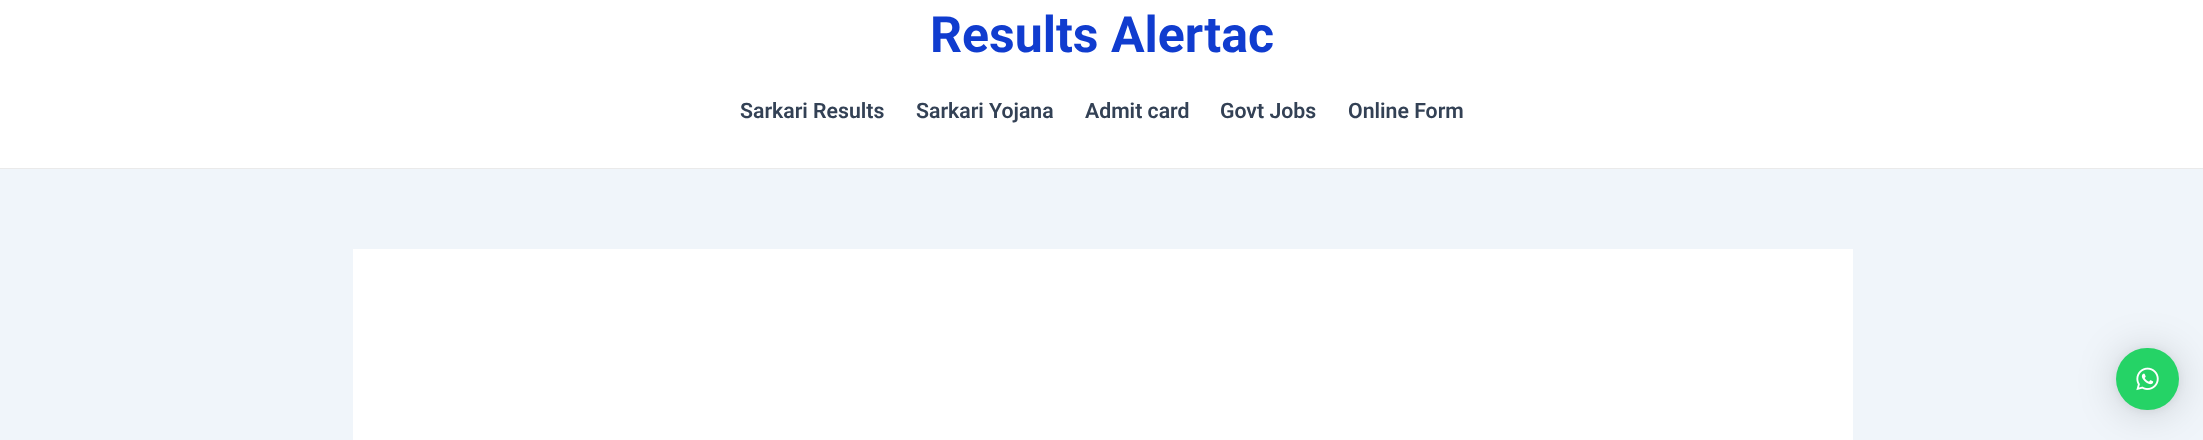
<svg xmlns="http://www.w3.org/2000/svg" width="2203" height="440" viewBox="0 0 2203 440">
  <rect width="100%" height="100%" fill="rgb(240,245,250)"/>
  <rect x="0" y="0" width="2203" height="168" fill="rgb(255,255,255)"/>
  <rect x="0" y="168" width="2203" height="1" fill="rgb(234,234,234)"/>
  <text x="930" y="52" font-family="Roboto" font-size="50" font-weight="bold" fill="rgb(16,60,207)">Results Alertac</text>
  <g font-family="Roboto" font-size="21.25" font-weight="600" fill="rgb(51,65,85)">
    <text x="740" y="118">Sarkari Results</text>
    <text x="916" y="118">Sarkari Yojana</text>
    <text x="1085" y="118">Admit card</text>
    <text x="1220" y="118">Govt Jobs</text>
    <text x="1348" y="118">Online Form</text>
  </g>
  <rect x="353" y="249" width="1500" height="191" fill="rgb(255,255,255)"/>
  <rect x="2116" y="350" width="63" height="63" rx="31.5" fill="rgba(0,0,0,0.16)" filter="blur(20px)"/>
  <rect x="2116" y="349" width="63" height="62" rx="31" fill="rgba(0,0,0,0.06)" filter="blur(4px)"/>
  <rect x="2116" y="348" width="63" height="62" rx="31" fill="rgb(37,211,102)"/>
  <image x="2136" y="367" width="23" height="24" href="pic1.png"/>
</svg>
